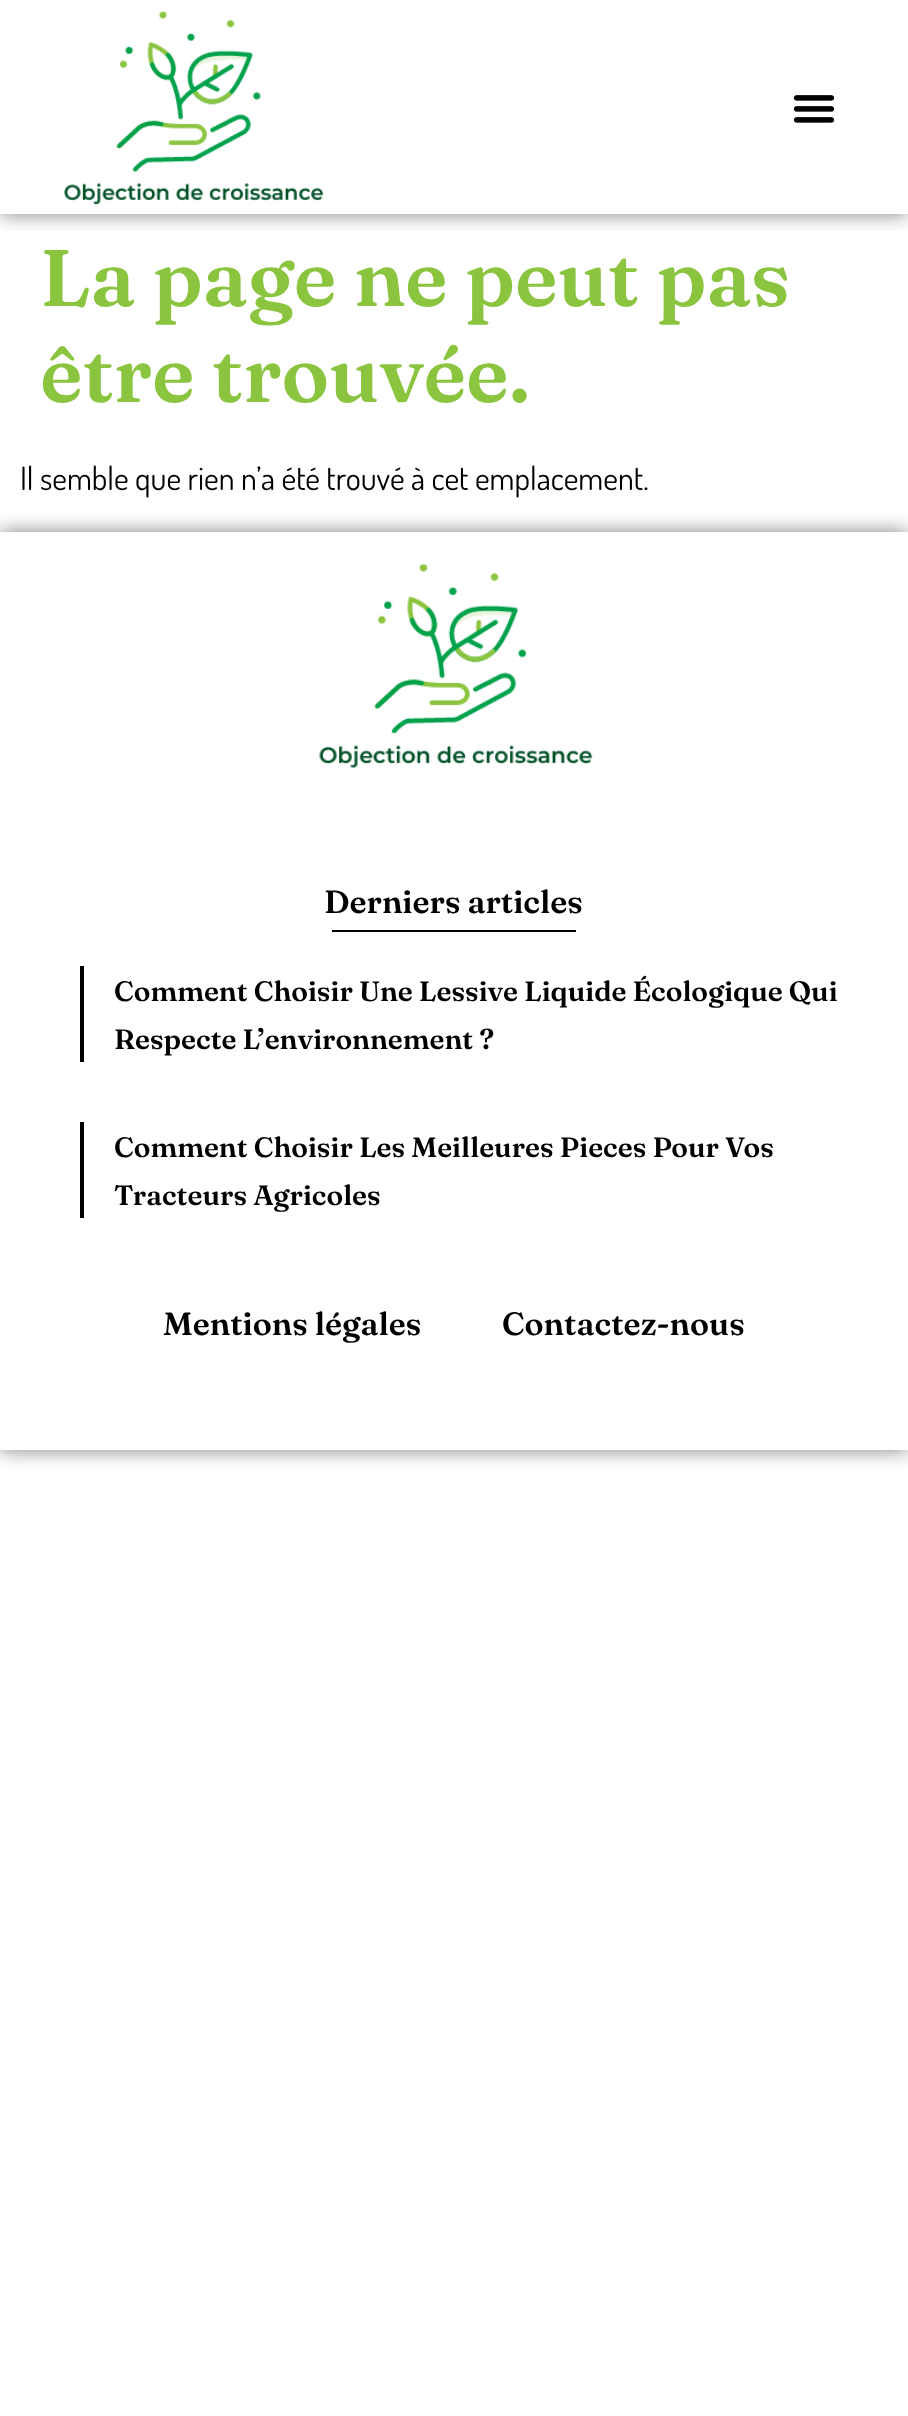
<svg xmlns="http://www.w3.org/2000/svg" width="908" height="2416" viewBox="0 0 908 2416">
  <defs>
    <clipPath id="clip1"><rect x="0" y="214" width="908" height="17"/></clipPath>
    <clipPath id="clip2"><path d="M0 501H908V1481H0ZM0 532H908V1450H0Z" clip-rule="evenodd"/></clipPath>
  </defs>
  <rect width="100%" height="100%" fill="rgb(255,255,255)"/>
  <g clip-path="url(#clip1)">
    <rect x="0" y="0" width="908" height="214" fill="rgba(0,0,0,0.5)" filter="blur(10px)"/>
  </g>
  <image x="64" y="11" width="260" height="194" href="pic1.png"/>
  <image x="793" y="95" width="42" height="28" href="pic2.png"/>
  <g font-family="Fraunces" font-size="80" font-weight="600" fill="rgb(139,197,63)">
    <text>
      <tspan x="40" y="306">La page ne peut pas</tspan>
      <tspan x="40" y="402">être trouvée.</tspan>
    </text>
  </g>
  <text x="20" y="490" font-family="Dosis" font-size="32" fill="rgb(0,0,0)">Il semble que rien n’a été trouvé à cet emplacement.</text>
  <g clip-path="url(#clip2)">
    <rect x="0" y="532" width="908" height="918" fill="rgba(0,0,0,0.5)" filter="blur(10px)"/>
  </g>
  <image x="319" y="563" width="274" height="205" href="pic3.png"/>
  <text x="324" y="913" font-family="Fraunces" font-size="32" font-weight="600" fill="rgb(0,0,0)">Derniers articles</text>
  <rect x="332" y="930" width="244" height="2" fill="rgb(0,0,0)"/>
  <rect x="80" y="966" width="4" height="96" fill="rgb(0,0,0)"/>
  <g font-family="Fraunces" font-size="28" font-weight="600" fill="rgb(0,0,0)">
    <text>
      <tspan x="114" y="1001">Comment Choisir Une Lessive Liquide Écologique Qui</tspan>
      <tspan x="114" y="1049">Respecte L’environnement ?</tspan>
    </text>
  </g>
  <rect x="80" y="1122" width="4" height="96" fill="rgb(0,0,0)"/>
  <g font-family="Fraunces" font-size="28" font-weight="600" fill="rgb(0,0,0)">
    <text>
      <tspan x="114" y="1157">Comment Choisir Les Meilleures Pieces Pour Vos</tspan>
      <tspan x="114" y="1205">Tracteurs Agricoles</tspan>
    </text>
  </g>
  <g font-family="Fraunces" font-size="32" font-weight="600" fill="rgb(0,0,0)">
    <text x="163" y="1335">Mentions légales</text>
    <text x="502" y="1335">Contactez-nous</text>
  </g>
</svg>
